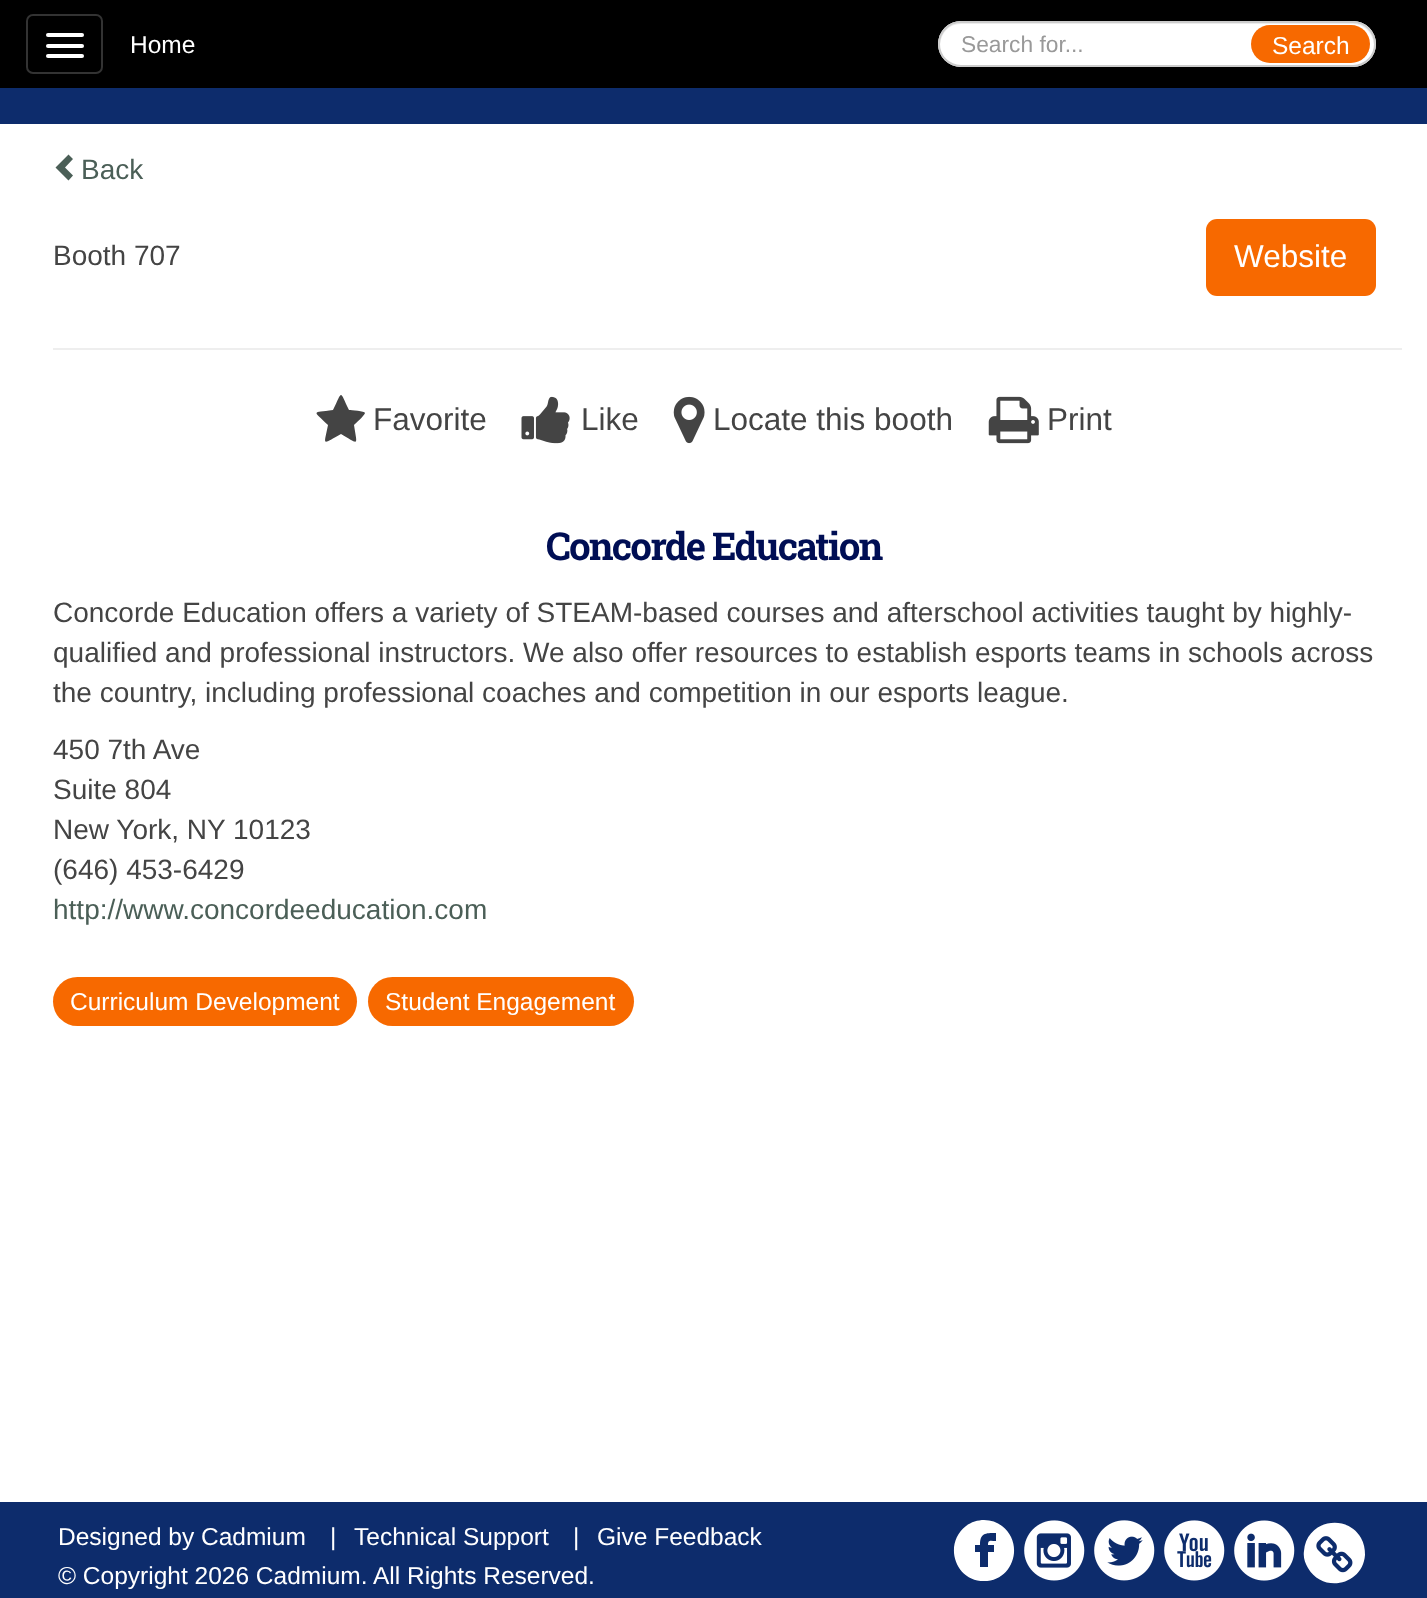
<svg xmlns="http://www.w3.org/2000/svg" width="1427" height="1598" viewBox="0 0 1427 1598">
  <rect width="100%" height="100%" fill="rgb(255,255,255)"/>
  <rect x="0" y="0" width="1427" height="88" fill="rgb(0,0,0)"/>
  <rect x="27" y="15" width="75" height="58" rx="6" fill="none" stroke="rgb(51,51,51)" stroke-width="2"/>
  <rect x="46" y="33" width="38" height="4" rx="2" fill="rgb(255,255,255)"/>
  <rect x="46" y="44" width="38" height="4" rx="2" fill="rgb(255,255,255)"/>
  <rect x="46" y="54" width="38" height="4" rx="2" fill="rgb(255,255,255)"/>
  <text x="130" y="53" font-family="Liberation Sans" font-size="24.5" fill="rgb(255,255,255)">Home</text>
  <rect x="938" y="21" width="438" height="46" rx="23" fill="rgb(255,255,255)"/>
  <path d="M961 24H1353C1364 24 1373 33 1374 45C1375 33 1365 23 1353 23H961C949 23 939 33 940 45C941 33 949 24 961 24Z" fill="rgb(236,236,236)"/>
  <rect x="939" y="22" width="436" height="44" rx="22" fill="none" stroke="rgb(204,204,204)" stroke-width="2"/>
  <text x="961" y="52" font-family="Liberation Sans" font-size="22.75" fill="rgb(153,153,153)">Search for...</text>
  <rect x="1251" y="25" width="119" height="38" rx="19" fill="rgb(247,105,0)"/>
  <text x="1272" y="54" font-family="Liberation Sans" font-size="24.5" fill="rgb(255,255,255)">Search</text>
  <rect x="0" y="88" width="1427" height="36" fill="rgb(13,44,108)"/>
  <path d="M73 159L65 167.5L73 175.5L68.5 180.5L55.5 167.5L68.5 154.5Z" fill="rgb(75,95,87)"/>
  <text x="81" y="179" font-family="Liberation Sans" font-size="28" fill="rgb(75,95,87)">Back</text>
  <text x="53" y="265" font-family="Liberation Sans" font-size="28" fill="rgb(68,68,68)">Booth 707</text>
  <rect x="1206" y="219" width="170" height="77" rx="11" fill="rgb(247,105,0)"/>
  <text x="1234" y="267" font-family="Liberation Sans" font-size="31.5" fill="rgb(255,255,255)">Website</text>
  <rect x="53" y="348" width="1349" height="2" fill="rgb(238,238,238)"/>
  <path d="M365 413C365 415 355 424 354 425C357 446 360 445 341 434C321 445 324 446 328 425C313 410 311 413 333 410C343 390 339 390 349 410C351 410 365 411 365 413Z" fill="rgb(68,68,68)"/>
  <text x="373" y="430" font-family="Liberation Sans" font-size="31.5" fill="rgb(68,68,68)">Favorite</text>
  <image x="521" y="396" width="49" height="48" href="pic1.png"/>
  <text x="581" y="430" font-family="Liberation Sans" font-size="31.5" fill="rgb(68,68,68)">Like</text>
  <image x="673" y="396" width="32" height="48" href="pic2.png"/>
  <text x="713" y="430" font-family="Liberation Sans" font-size="31.5" fill="rgb(68,68,68)">Locate this booth</text>
  <image x="988" y="396" width="51" height="48" href="pic3.png"/>
  <text x="1047" y="430" font-family="Liberation Sans" font-size="31.5" fill="rgb(68,68,68)">Print</text>
  <text x="546" y="560" font-family="Roboto Slab" font-size="38.5" font-weight="bold" letter-spacing="-1.75" fill="rgb(0,14,84)">Concorde Education</text>
  <g font-family="Liberation Sans" font-size="28" fill="rgb(68,68,68)">
    <text>
      <tspan x="53" y="622">Concorde Education offers a variety of STEAM-based courses and afterschool activities taught by highly-</tspan>
      <tspan x="53" y="662">qualified and professional instructors. We also offer resources to establish esports teams in schools across</tspan>
      <tspan x="53" y="702">the country, including professional coaches and competition in our esports league.</tspan>
    </text>
    <text>
      <tspan x="53" y="759">450 7th Ave</tspan>
      <tspan x="53" y="799">Suite 804</tspan>
      <tspan x="53" y="839">New York, NY 10123</tspan>
      <tspan x="53" y="879">(646) 453-6429</tspan>
    </text>
  </g>
  <text x="53" y="919" font-family="Liberation Sans" font-size="28" fill="rgb(75,95,87)">http://www.concordeeducation.com</text>
  <rect x="53" y="977" width="304" height="49" rx="24.5" fill="rgb(247,105,0)"/>
  <text x="70" y="1010" font-family="Liberation Sans" font-size="24.5" fill="rgb(255,255,255)">Curriculum Development</text>
  <rect x="368" y="977" width="266" height="49" rx="24.5" fill="rgb(247,105,0)"/>
  <text x="385" y="1010" font-family="Liberation Sans" font-size="24.5" fill="rgb(255,255,255)">Student Engagement</text>
  <rect x="0" y="1502" width="1427" height="96" fill="rgb(13,44,108)"/>
  <g font-family="Liberation Sans" font-size="24.5" fill="rgb(255,255,255)">
    <text x="58" y="1545">Designed by Cadmium</text>
    <text x="330" y="1545">|</text>
    <text x="354" y="1545">Technical Support</text>
    <text x="573" y="1545">|</text>
    <text x="597" y="1545">Give Feedback</text>
    <text x="58" y="1584">© Copyright 2026 Cadmium. All Rights Reserved.</text>
  </g>
  <path d="M984 1520C991 1520 997 1522 1002 1526C1025 1544 1013 1581 984 1581C955 1581 943 1544 966 1526C971 1522 978 1520 984 1520ZM996 1533C985 1533 980 1533 980 1545H975V1552H980V1567H988V1552H994V1545H988C988 1539 991 1541 996 1541Z" fill="rgb(255,255,255)"/>
  <image x="1024" y="1520" width="61" height="61" href="pic4.png"/>
  <image x="1094" y="1520" width="61" height="61" href="pic5.png"/>
  <image x="1164" y="1520" width="61" height="61" href="pic6.png"/>
  <image x="1234" y="1520" width="61" height="61" href="pic7.png"/>
  <path d="M1361 1538C1364 1543 1365 1549 1365 1555C1363 1585 1323 1594 1308 1568C1305 1563 1303 1557 1304 1551C1306 1521 1346 1512 1361 1538Z" fill="rgb(255,255,255)"/>
  <image x="1316" y="1536" width="37" height="37" href="pic8.png"/>
</svg>
